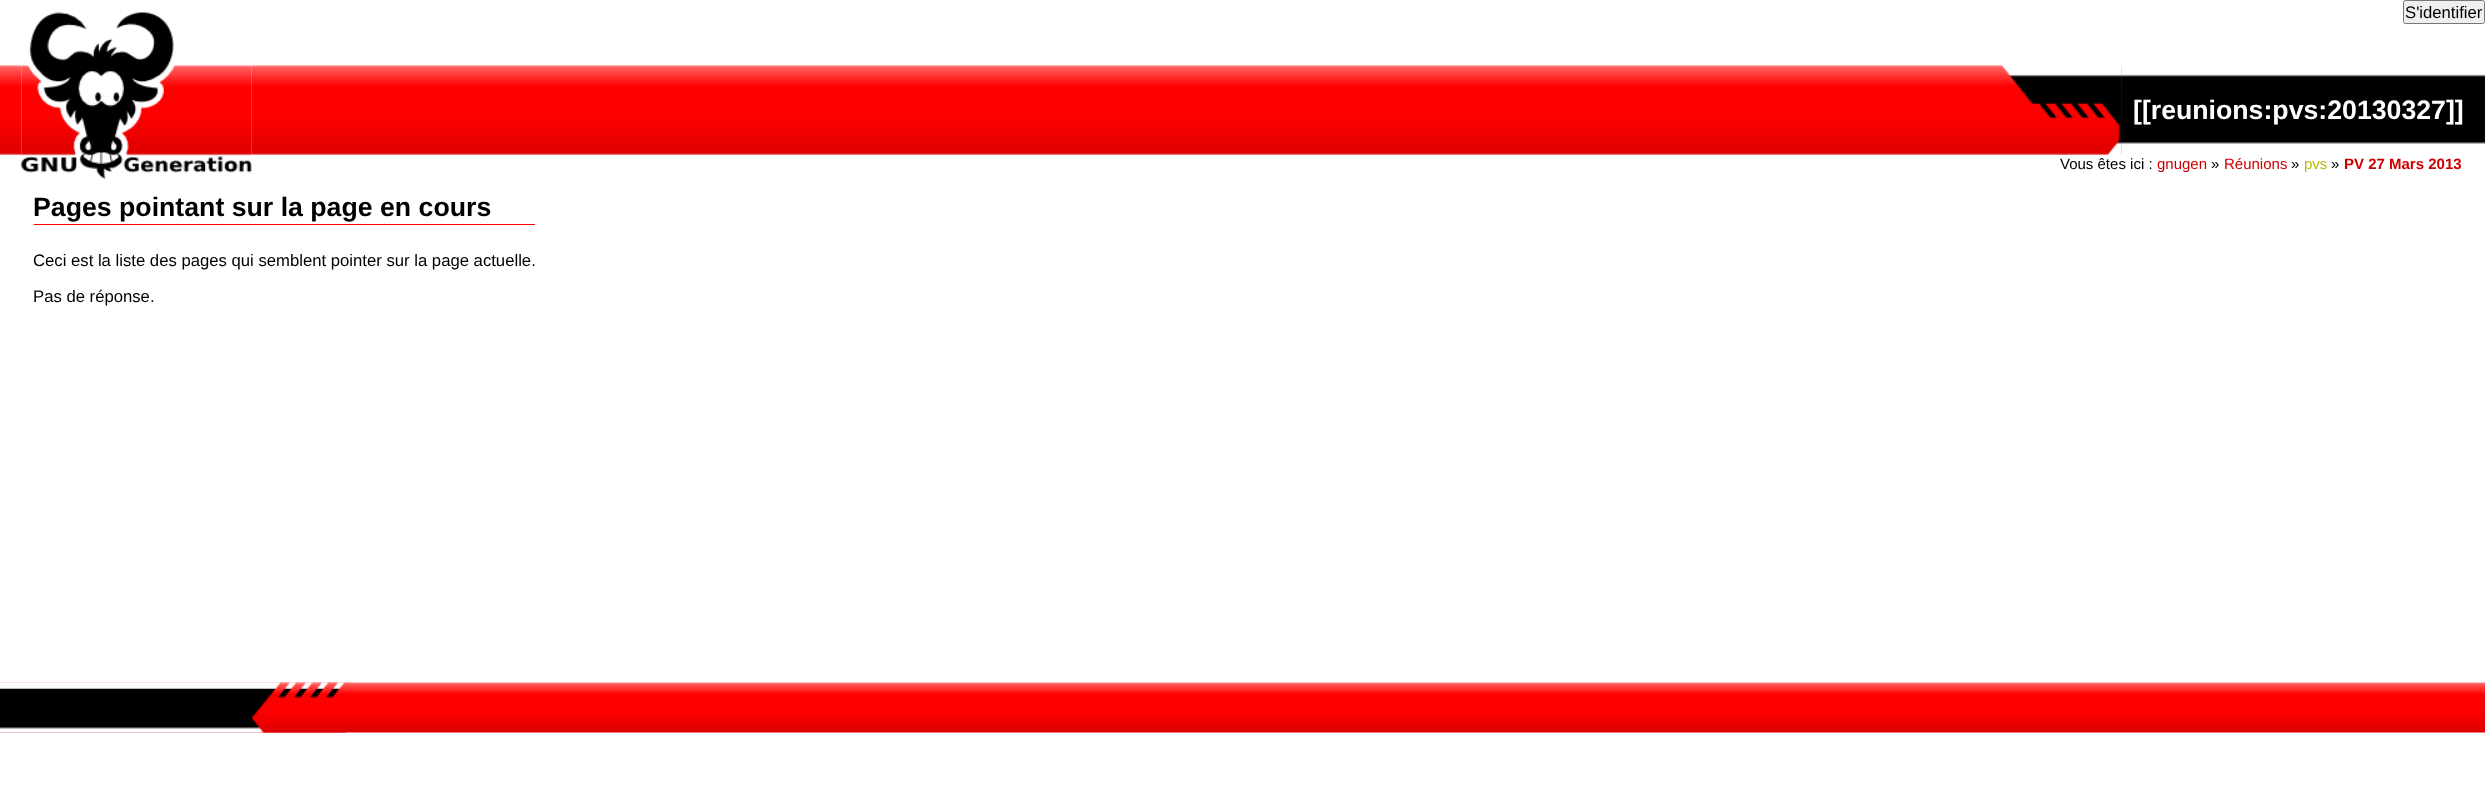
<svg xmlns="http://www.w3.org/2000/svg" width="2485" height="785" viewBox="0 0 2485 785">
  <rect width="100%" height="100%" fill="rgb(255,255,255)"/>
  <image x="0" y="65" width="22" height="90" href="pic1.png"/>
  <image x="251" y="65" width="1871" height="90" href="pic3.png"/>
  <image x="21" y="12" width="231" height="167" href="pic2.png"/>
  <rect x="2403.5" y="0.5" width="81" height="23" rx="2" fill="rgb(239,239,239)" stroke="rgb(118,118,118)"/>
  <text x="2405" y="18" font-family="Liberation Sans" font-size="16.7" fill="rgb(0,0,0)">S'identifier</text>
  <image x="2121" y="65" width="364" height="90" href="pic5.png"/>
  <image x="2001" y="65" width="121" height="90" href="pic4.png"/>
  <text x="2133" y="119" font-family="Liberation Sans" font-size="26.7" font-weight="bold" fill="rgb(255,255,255)">[[reunions:pvs:20130327]]</text>
  <text x="2060" y="169" font-family="Liberation Sans" font-size="15" fill="rgb(0,0,0)">Vous êtes ici :</text>
  <text x="2157" y="169" font-family="Liberation Sans" font-size="15" fill="rgb(204,0,0)">gnugen</text>
  <text x="2211" y="169" font-family="Liberation Sans" font-size="15" fill="rgb(0,0,0)">»</text>
  <text x="2224" y="169" font-family="Liberation Sans" font-size="15" fill="rgb(204,0,0)">Réunions</text>
  <text x="2291" y="169" font-family="Liberation Sans" font-size="15" fill="rgb(0,0,0)">»</text>
  <text x="2304" y="169" font-family="Liberation Sans" font-size="15" fill="rgb(187,187,0)">pvs</text>
  <text x="2331" y="169" font-family="Liberation Sans" font-size="15" fill="rgb(0,0,0)">»</text>
  <text x="2344" y="169" font-family="Liberation Sans" font-size="15" font-weight="bold" fill="rgb(204,0,0)">PV 27 Mars 2013</text>
  <rect x="34" y="224" width="501" height="1" fill="rgb(255,0,0)"/>
  <text x="33" y="216" font-family="Liberation Sans" font-size="26.7" font-weight="bold" fill="rgb(0,0,0)">Pages pointant sur la page en cours</text>
  <g font-family="Liberation Sans" font-size="16.7" fill="rgb(0,0,0)">
    <text x="33" y="266">Ceci est la liste des pages qui semblent pointer sur la page actuelle.</text>
    <text x="33" y="302">Pas de réponse.</text>
  </g>
  <image x="0" y="682" width="2485" height="51" href="pic6.png"/>
  <image x="0" y="682" width="250" height="51" href="pic7.png"/>
  <image x="250" y="682" width="97" height="51" href="pic8.png"/>
</svg>
